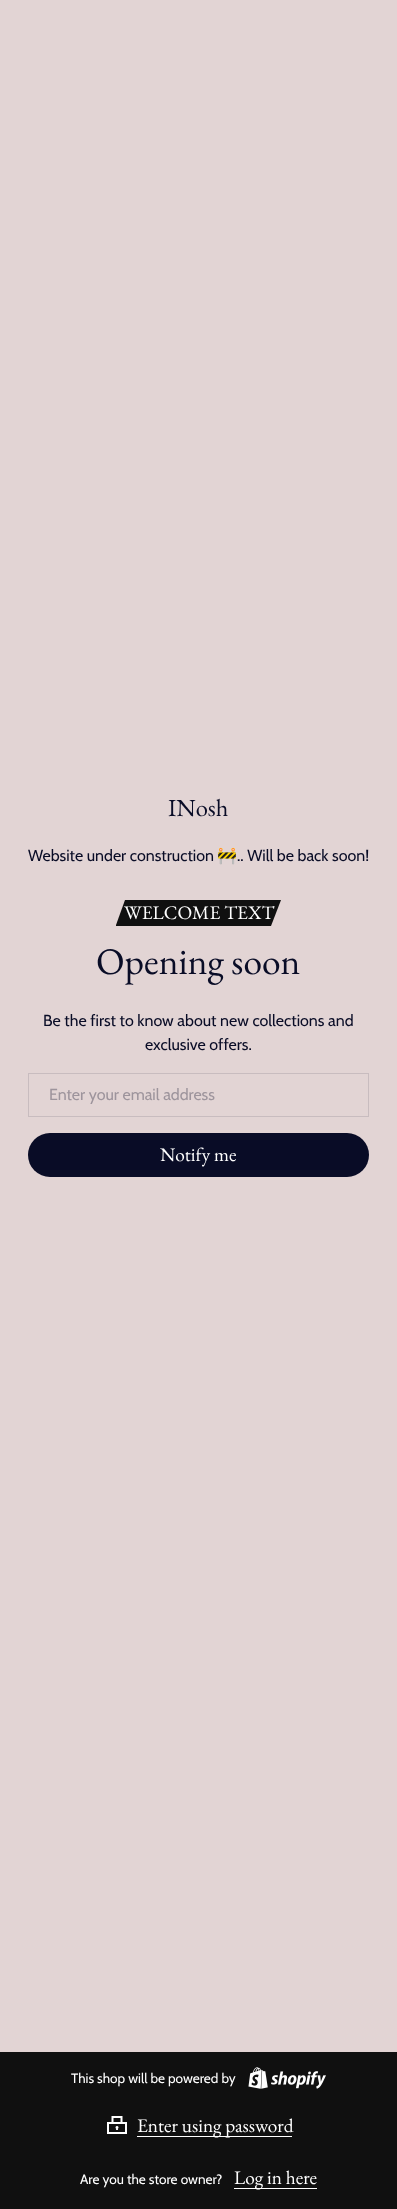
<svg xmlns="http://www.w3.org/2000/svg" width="397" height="2209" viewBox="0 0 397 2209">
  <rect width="100%" height="100%" fill="rgb(226,212,212)"/>
  <text x="168" y="816" font-family="EB Garamond" font-size="24.5" fill="rgb(9,12,38)">INosh</text>
  <text x="28" y="861" font-family="Cabin" font-size="16" fill="rgb(9,12,38)">Website under construction</text>
  <text x="217" y="861" font-family="Noto Color Emoji" font-size="16" fill="rgb(9,12,38)">🚧</text>
  <text x="237" y="861" font-family="Cabin" font-size="16" fill="rgb(9,12,38)">.. Will be back soon!</text>
  <path d="M116 925L125 900H281L271 926H116Z" fill="rgb(16,16,16)"/>
  <text x="124" y="919" font-family="EB Garamond" font-size="19.25" fill="rgb(255,255,255)">WELCOME TEXT</text>
  <text x="96" y="974" font-family="EB Garamond" font-size="37.5" fill="rgb(9,12,38)">Opening soon</text>
  <g font-family="Cabin" font-size="16" fill="rgb(9,12,38)">
    <text x="43" y="1026">Be the first to know about new collections and</text>
    <text x="145" y="1050">exclusive offers.</text>
  </g>
  <rect x="28.5" y="1073.5" width="340" height="43" fill="none" stroke="rgb(200,188,191)"/>
  <text x="49" y="1100" font-family="Cabin" font-size="16" fill="rgb(157,148,156)">Enter your email address</text>
  <rect x="28" y="1133" width="341" height="44" rx="22" fill="rgb(9,12,38)"/>
  <text x="160" y="1161" font-family="EB Garamond" font-size="19.25" fill="rgb(255,255,255)">Notify me</text>
  <rect x="0" y="2052" width="397" height="157" fill="rgb(16,16,16)"/>
  <text x="71" y="2083" font-family="Cabin" font-size="13.6" fill="rgb(255,255,255)">This shop will be powered by</text>
  <image x="248" y="2067" width="78" height="22" href="pic1.png"/>
  <image x="107" y="2116" width="20" height="18" href="pic2.png"/>
  <rect x="137" y="2136" width="155" height="1" fill="rgb(255,255,255)"/>
  <text x="137" y="2132" font-family="EB Garamond" font-size="19.25" fill="rgb(255,255,255)">Enter using password</text>
  <text x="80" y="2184" font-family="Cabin" font-size="13.6" fill="rgb(255,255,255)">Are you the store owner?</text>
  <rect x="234" y="2188" width="83" height="1" fill="rgb(255,255,255)"/>
  <text x="234" y="2184" font-family="EB Garamond" font-size="19.25" fill="rgb(255,255,255)">Log in here</text>
</svg>
